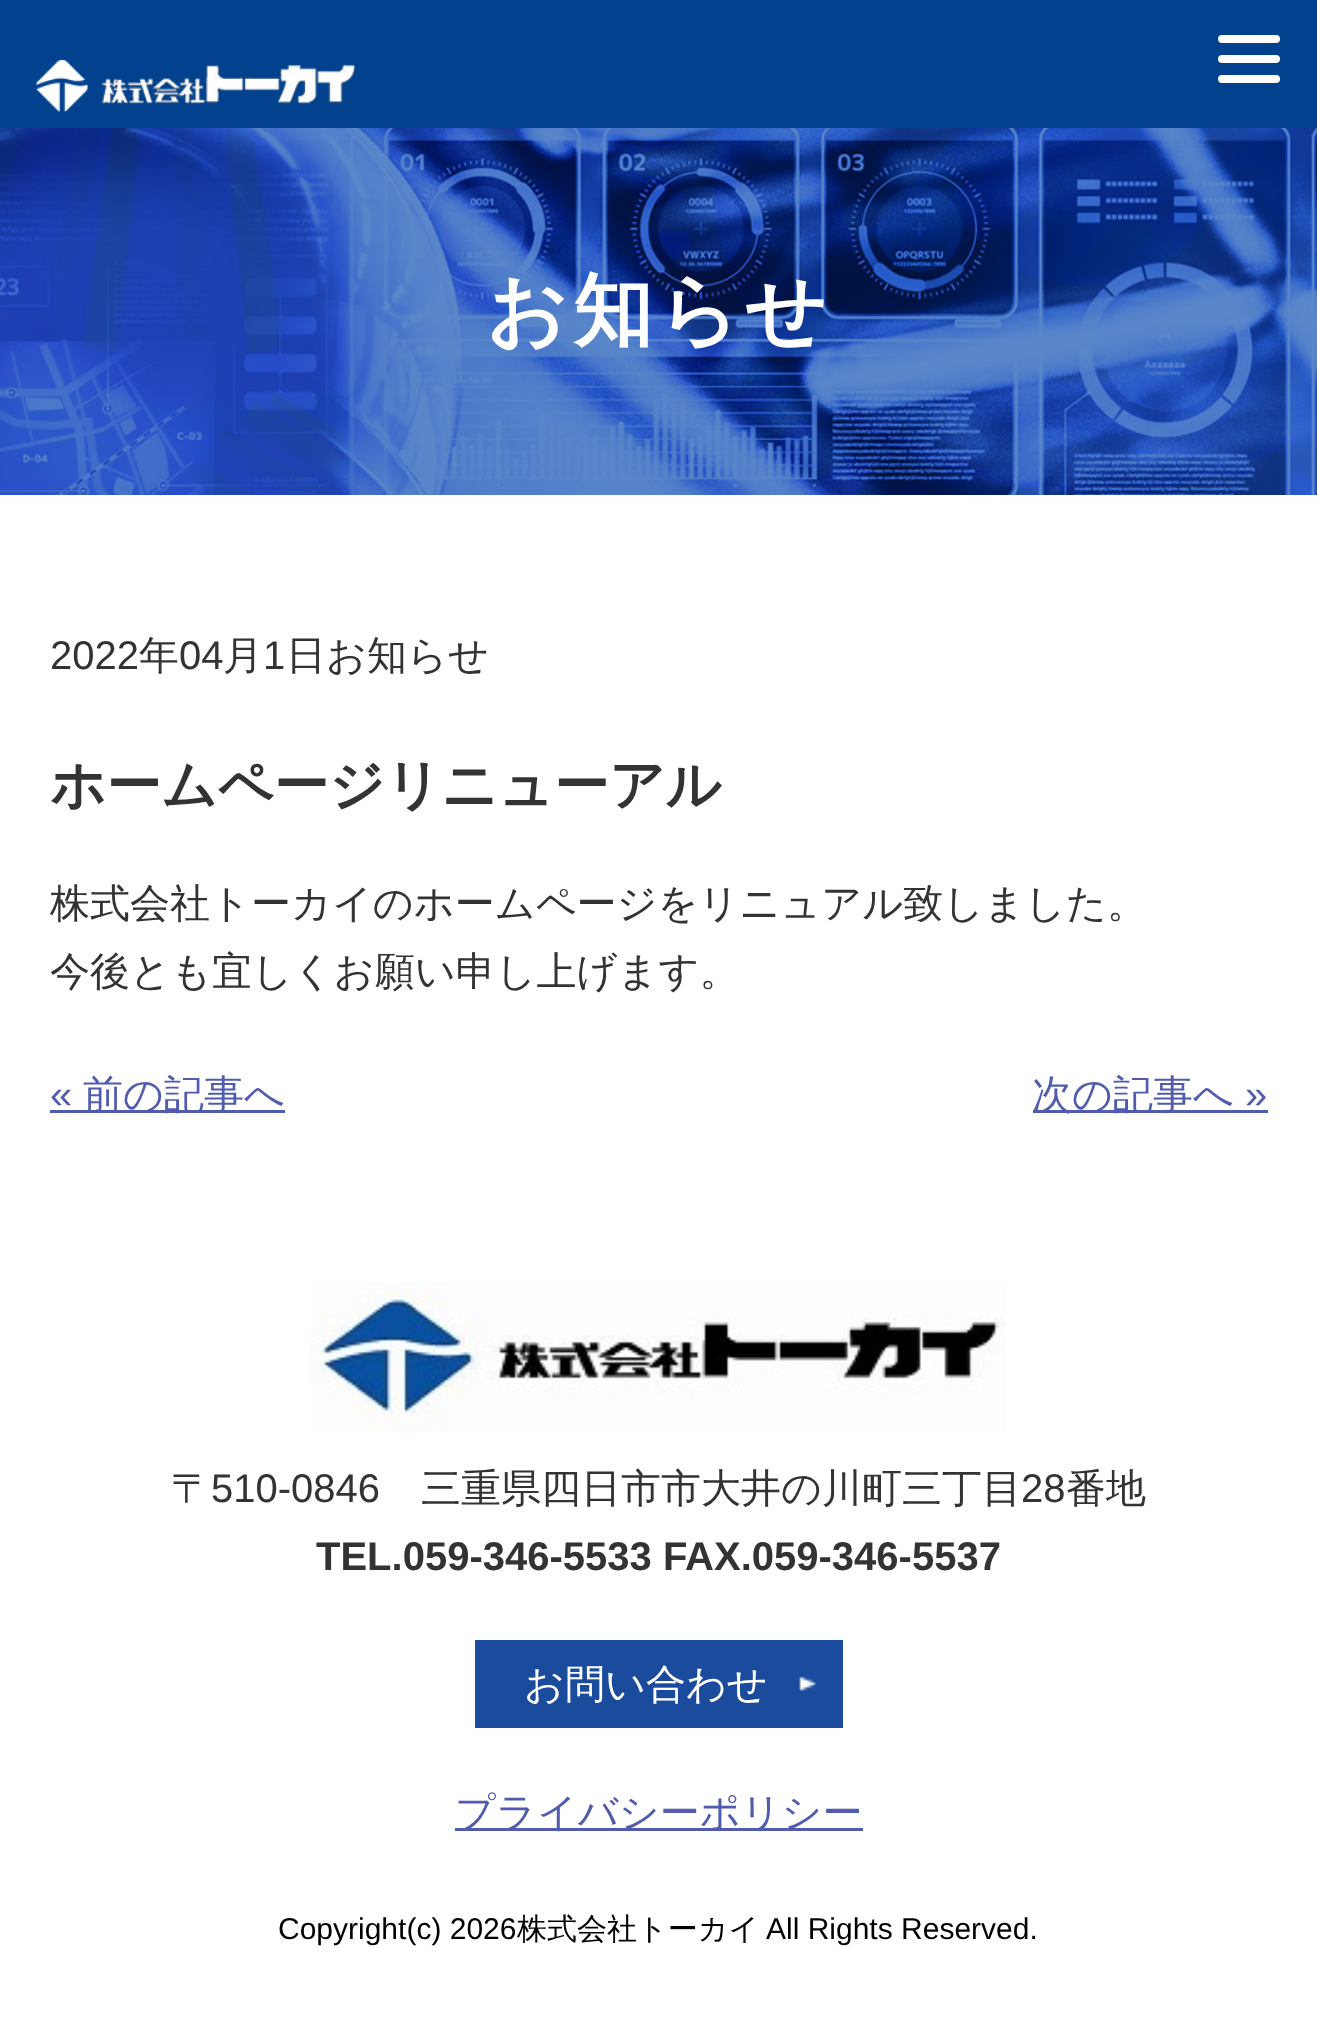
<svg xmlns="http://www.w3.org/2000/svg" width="1317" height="2030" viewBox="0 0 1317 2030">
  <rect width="100%" height="100%" fill="rgb(255,255,255)"/>
  <rect x="0" y="0" width="1317" height="128" fill="rgb(2,65,142)"/>
  <image x="36" y="59" width="320" height="53" href="pic1.png"/>
  <rect x="1218" y="35" width="62" height="8" rx="4" fill="rgb(255,255,255)"/>
  <rect x="1218" y="55" width="62" height="8" rx="4" fill="rgb(255,255,255)"/>
  <rect x="1218" y="75" width="62" height="8" rx="4" fill="rgb(255,255,255)"/>
  <image x="0" y="128" width="1317" height="367" href="pic2.png"/>
  <text x="486" y="338" font-family="WenQuanYi Zen Hei" font-size="80" font-weight="bold" letter-spacing="5" fill="rgb(255,255,255)">お知らせ</text>
  <text x="50" y="669" font-family="Liberation Sans" font-size="40" fill="rgb(51,51,51)">2022</text>
  <text x="139" y="669" font-family="WenQuanYi Zen Hei" font-size="40" font-weight="500" fill="rgb(51,51,51)">年</text>
  <text x="179" y="669" font-family="Liberation Sans" font-size="40" fill="rgb(51,51,51)">04</text>
  <text x="223" y="669" font-family="WenQuanYi Zen Hei" font-size="40" font-weight="500" fill="rgb(51,51,51)">月</text>
  <text x="263" y="669" font-family="Liberation Sans" font-size="40" fill="rgb(51,51,51)">1</text>
  <text x="286" y="669" font-family="WenQuanYi Zen Hei" font-size="40" font-weight="500" fill="rgb(51,51,51)">日お知らせ</text>
  <text x="50" y="804" font-family="WenQuanYi Zen Hei" font-size="55" font-weight="bold" fill="rgb(51,51,51)">ホームページリニューアル</text>
  <g font-family="WenQuanYi Zen Hei" font-size="40" font-weight="500" fill="rgb(51,51,51)">
    <text>
      <tspan x="50" y="917">株式会社トーカイのホームページをリニュアル致しました。</tspan>
      <tspan x="50" y="985">今後とも宜しくお願い申し上げます。</tspan>
    </text>
  </g>
  <text x="50" y="1108" font-family="Liberation Sans" font-size="40" fill="rgb(81,92,174)">«</text>
  <rect x="50" y="1110" width="235" height="3" fill="rgb(81,92,174)"/>
  <text x="83" y="1108" font-family="WenQuanYi Zen Hei" font-size="40" font-weight="500" fill="rgb(81,92,174)">前の記事へ</text>
  <rect x="1033" y="1110" width="235" height="3" fill="rgb(81,92,174)"/>
  <text x="1032" y="1108" font-family="WenQuanYi Zen Hei" font-size="40" font-weight="500" fill="rgb(81,92,174)">次の記事へ</text>
  <text x="1245" y="1108" font-family="Liberation Sans" font-size="40" fill="rgb(81,92,174)">»</text>
  <image x="310" y="1282" width="696" height="151" href="pic3.png"/>
  <text x="171" y="1502" font-family="WenQuanYi Zen Hei" font-size="40" font-weight="500" fill="rgb(51,51,51)">〒</text>
  <text x="211" y="1502" font-family="Liberation Sans" font-size="40" fill="rgb(51,51,51)">510-0846</text>
  <text x="421" y="1502" font-family="WenQuanYi Zen Hei" font-size="40" font-weight="500" fill="rgb(51,51,51)">三重県四日市市大井の川町三丁目</text>
  <text x="1021" y="1502" font-family="Liberation Sans" font-size="40" fill="rgb(51,51,51)">28</text>
  <text x="1066" y="1502" font-family="WenQuanYi Zen Hei" font-size="40" font-weight="500" fill="rgb(51,51,51)">番地</text>
  <text x="316" y="1570" font-family="Liberation Sans" font-size="40" font-weight="bold" fill="rgb(51,51,51)">TEL.059-346-5533 FAX.059-346-5537</text>
  <rect x="475" y="1640" width="368" height="88" fill="rgb(26,75,157)"/>
  <image x="799" y="1676" width="17" height="15" href="pic4.png"/>
  <text x="524" y="1698" font-family="WenQuanYi Zen Hei" font-size="40" font-weight="500" fill="rgb(255,255,255)">お問い合わせ</text>
  <rect x="455" y="1828" width="408" height="3" fill="rgb(81,92,174)"/>
  <text x="455" y="1826" font-family="WenQuanYi Zen Hei" font-size="40" font-weight="500" fill="rgb(81,92,174)">プライバシーポリシー</text>
  <text x="278" y="1939" font-family="Liberation Sans" font-size="30" fill="rgb(0,0,0)">Copyright(c) 2026</text>
  <text x="517" y="1939" font-family="WenQuanYi Zen Hei" font-size="30" font-weight="500" fill="rgb(0,0,0)">株式会社トーカイ</text>
  <text x="766" y="1939" font-family="Liberation Sans" font-size="30" fill="rgb(0,0,0)">All Rights Reserved.</text>
</svg>
